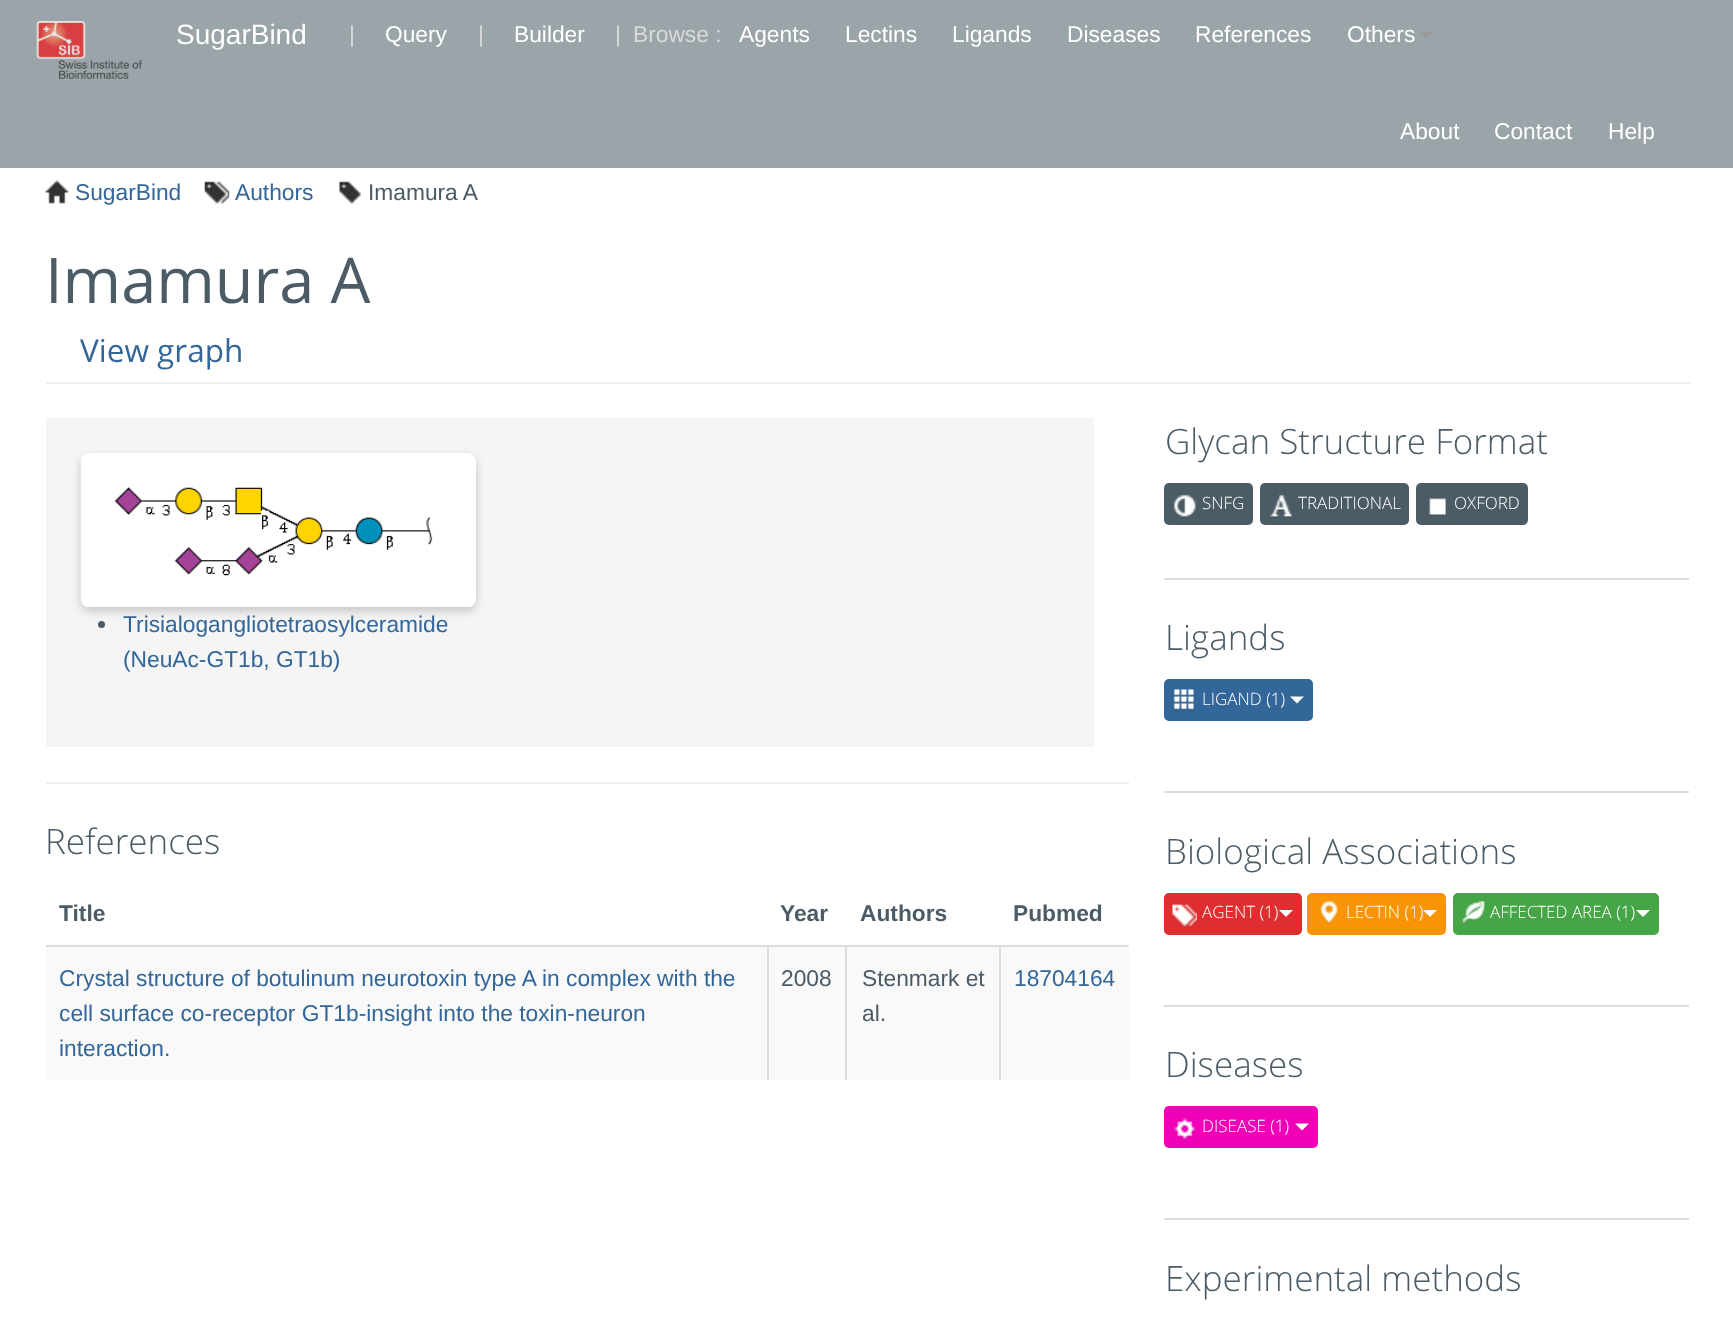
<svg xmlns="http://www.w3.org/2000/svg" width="1733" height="1336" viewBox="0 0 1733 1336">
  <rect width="100%" height="100%" fill="rgb(255,255,255)"/>
  <rect x="0" y="0" width="1733" height="168" fill="rgb(154,164,169)"/>
  <image x="36" y="21" width="106" height="58" href="pic1.png"/>
  <text x="176" y="44" font-family="Liberation Sans" font-size="28" fill="rgb(255,255,255)">SugarBind</text>
  <text x="349" y="42" font-family="Liberation Sans" font-size="22.75" fill="rgb(217,217,217)">|</text>
  <text x="385" y="42" font-family="Liberation Sans" font-size="22.75" fill="rgb(255,255,255)">Query</text>
  <text x="478" y="42" font-family="Liberation Sans" font-size="22.75" fill="rgb(217,217,217)">|</text>
  <text x="514" y="42" font-family="Liberation Sans" font-size="22.75" fill="rgb(255,255,255)">Builder</text>
  <g font-family="Liberation Sans" font-size="22.75" fill="rgb(217,217,217)">
    <text x="615" y="42">|</text>
    <text x="633" y="42">Browse :</text>
  </g>
  <g font-family="Liberation Sans" font-size="22.75" fill="rgb(255,255,255)">
    <text x="739" y="42">Agents</text>
    <text x="845" y="42">Lectins</text>
    <text x="952" y="42">Ligands</text>
    <text x="1067" y="42">Diseases</text>
    <text x="1195" y="42">References</text>
    <text x="1347" y="42">Others</text>
  </g>
  <path d="M1419 31.5H1433L1426 38.5Z" fill="rgb(153,153,153)"/>
  <g font-family="Liberation Sans" font-size="22.75" fill="rgb(255,255,255)">
    <text x="1400" y="139">About</text>
    <text x="1494" y="139">Contact</text>
    <text x="1608" y="139">Help</text>
  </g>
  <image x="45" y="180" width="24" height="24" href="pic2.png"/>
  <text x="75" y="200" font-family="Liberation Sans" font-size="22.75" fill="rgb(51,102,153)">SugarBind</text>
  <image x="204" y="181" width="26" height="23" href="pic3.png"/>
  <text x="235" y="200" font-family="Liberation Sans" font-size="22.75" fill="rgb(51,102,153)">Authors</text>
  <image x="339" y="181" width="22" height="23" href="pic4.png"/>
  <text x="368" y="200" font-family="Liberation Sans" font-size="22.75" fill="rgb(75,92,102)">Imamura A</text>
  <rect x="46" y="382" width="1645" height="2" fill="rgb(238,238,238)"/>
  <text x="45" y="303" font-family="Open Sans" font-size="63" fill="rgb(75,92,102)">Imamura A</text>
  <text x="80" y="362" font-family="Open Sans" font-size="31.5" fill="rgb(51,102,153)">View graph</text>
  <rect x="46" y="418" width="1048" height="329" fill="rgb(245,245,245)"/>
  <circle cx="101.5" cy="624.5" r="3.5" fill="rgb(75,92,102)"/>
  <rect x="81" y="457" width="395" height="154" rx="9" fill="rgba(0,0,0,0.2)" filter="blur(5px)"/>
  <rect x="81" y="453" width="395" height="154" rx="9" fill="rgb(255,255,255)"/>
  <image x="80" y="455" width="396" height="152" href="pic5.png"/>
  <g font-family="Liberation Sans" font-size="22.75" fill="rgb(51,102,153)">
    <text>
      <tspan x="123" y="632">Trisialogangliotetraosylceramide</tspan>
      <tspan x="123" y="667">(NeuAc-GT1b, GT1b)</tspan>
    </text>
  </g>
  <rect x="46" y="782" width="1083" height="2" fill="rgb(238,238,238)"/>
  <text x="45" y="854" font-family="Open Sans" font-size="35" font-weight="300" fill="rgb(75,92,102)">References</text>
  <g font-family="Liberation Sans" font-size="22.75" font-weight="bold" fill="rgb(75,92,102)">
    <text x="59" y="921">Title</text>
    <text x="780" y="921">Year</text>
    <text x="860" y="921">Authors</text>
    <text x="1013" y="921">Pubmed</text>
  </g>
  <rect x="46" y="947" width="721" height="133" fill="rgb(249,249,249)"/>
  <rect x="46" y="945" width="1083" height="2" fill="rgb(221,221,221)"/>
  <g font-family="Liberation Sans" font-size="22.75" fill="rgb(51,102,153)">
    <text>
      <tspan x="59" y="986">Crystal structure of botulinum neurotoxin type A in complex with the</tspan>
      <tspan x="59" y="1021">cell surface co-receptor GT1b-insight into the toxin-neuron</tspan>
      <tspan x="59" y="1056">interaction.</tspan>
    </text>
  </g>
  <rect x="769" y="947" width="76" height="133" fill="rgb(249,249,249)"/>
  <rect x="767" y="945" width="2" height="135" fill="rgb(221,221,221)"/>
  <text x="781" y="986" font-family="Liberation Sans" font-size="22.75" fill="rgb(75,92,102)">2008</text>
  <rect x="847" y="947" width="152" height="133" fill="rgb(249,249,249)"/>
  <rect x="845" y="945" width="2" height="135" fill="rgb(221,221,221)"/>
  <g font-family="Liberation Sans" font-size="22.75" fill="rgb(75,92,102)">
    <text>
      <tspan x="862" y="986">Stenmark et</tspan>
      <tspan x="862" y="1021">al.</tspan>
    </text>
  </g>
  <rect x="1001" y="947" width="128" height="133" fill="rgb(249,249,249)"/>
  <rect x="999" y="945" width="2" height="135" fill="rgb(221,221,221)"/>
  <text x="1014" y="986" font-family="Liberation Sans" font-size="22.75" fill="rgb(51,102,153)">18704164</text>
  <rect x="1164" y="578" width="525" height="2" fill="rgb(221,221,221)"/>
  <text x="1165" y="454" font-family="Open Sans" font-size="35" font-weight="300" fill="rgb(75,92,102)">Glycan Structure Format</text>
  <rect x="1164" y="483" width="89" height="42" rx="5" fill="rgb(75,92,102)"/>
  <image x="1173" y="494" width="23" height="24" href="pic6.png"/>
  <text x="1202" y="509" font-family="Open Sans" font-size="17" font-weight="300" fill="rgb(255,255,255)">SNFG</text>
  <rect x="1260" y="483" width="149" height="42" rx="5" fill="rgb(75,92,102)"/>
  <image x="1270" y="494" width="22" height="24" href="pic7.png"/>
  <text x="1298" y="509" font-family="Open Sans" font-size="17" font-weight="300" fill="rgb(255,255,255)">TRADITIONAL</text>
  <rect x="1416" y="483" width="112" height="42" rx="5" fill="rgb(75,92,102)"/>
  <image x="1429" y="498" width="17" height="18" href="pic8.png"/>
  <text x="1454" y="509" font-family="Open Sans" font-size="17" font-weight="300" fill="rgb(255,255,255)">OXFORD</text>
  <rect x="1164" y="791" width="525" height="2" fill="rgb(221,221,221)"/>
  <text x="1165" y="650" font-family="Open Sans" font-size="35" font-weight="300" fill="rgb(75,92,102)">Ligands</text>
  <rect x="1164" y="679" width="149" height="42" rx="5" fill="rgb(51,102,153)"/>
  <image x="1173" y="689" width="21" height="22" href="pic9.png"/>
  <text x="1202" y="705" font-family="Open Sans" font-size="17" font-weight="300" fill="rgb(255,255,255)">LIGAND (1)</text>
  <path d="M1290 696.5H1304L1297 703.5Z" fill="rgb(255,255,255)"/>
  <rect x="1164" y="1005" width="525" height="2" fill="rgb(221,221,221)"/>
  <text x="1165" y="864" font-family="Open Sans" font-size="35" font-weight="300" fill="rgb(75,92,102)">Biological Associations</text>
  <rect x="1164" y="893" width="138" height="42" rx="5" fill="rgb(223,46,48)"/>
  <image x="1172" y="904" width="25" height="24" href="pic10.png"/>
  <text x="1202" y="918" font-family="Open Sans" font-size="17" font-weight="300" fill="rgb(255,255,255)">AGENT (1)</text>
  <path d="M1279 910H1293L1286 917Z" fill="rgb(255,255,255)"/>
  <rect x="1307" y="893" width="139" height="42" rx="5" fill="rgb(248,148,6)"/>
  <image x="1320" y="900" width="18" height="24" href="pic11.png"/>
  <text x="1346" y="918" font-family="Open Sans" font-size="17" font-weight="300" fill="rgb(255,255,255)">LECTIN (1)</text>
  <path d="M1423 910H1437L1430 917Z" fill="rgb(255,255,255)"/>
  <rect x="1453" y="893" width="206" height="42" rx="5" fill="rgb(70,165,70)"/>
  <image x="1462" y="900" width="23" height="24" href="pic12.png"/>
  <text x="1490" y="918" font-family="Open Sans" font-size="17" font-weight="300" fill="rgb(255,255,255)">AFFECTED AREA (1)</text>
  <path d="M1636 910H1650L1643 917Z" fill="rgb(255,255,255)"/>
  <rect x="1164" y="1218" width="525" height="2" fill="rgb(221,221,221)"/>
  <text x="1165" y="1077" font-family="Open Sans" font-size="35" font-weight="300" fill="rgb(75,92,102)">Diseases</text>
  <rect x="1164" y="1106" width="154" height="42" rx="5" fill="rgb(240,0,182)"/>
  <image x="1174" y="1118" width="22" height="22" href="pic13.png"/>
  <text x="1202" y="1132" font-family="Open Sans" font-size="17" font-weight="300" fill="rgb(255,255,255)">DISEASE (1)</text>
  <path d="M1295 1123.5H1309L1302 1130.5Z" fill="rgb(255,255,255)"/>
  <text x="1165" y="1291" font-family="Open Sans" font-size="35" font-weight="300" fill="rgb(75,92,102)">Experimental methods</text>
</svg>
